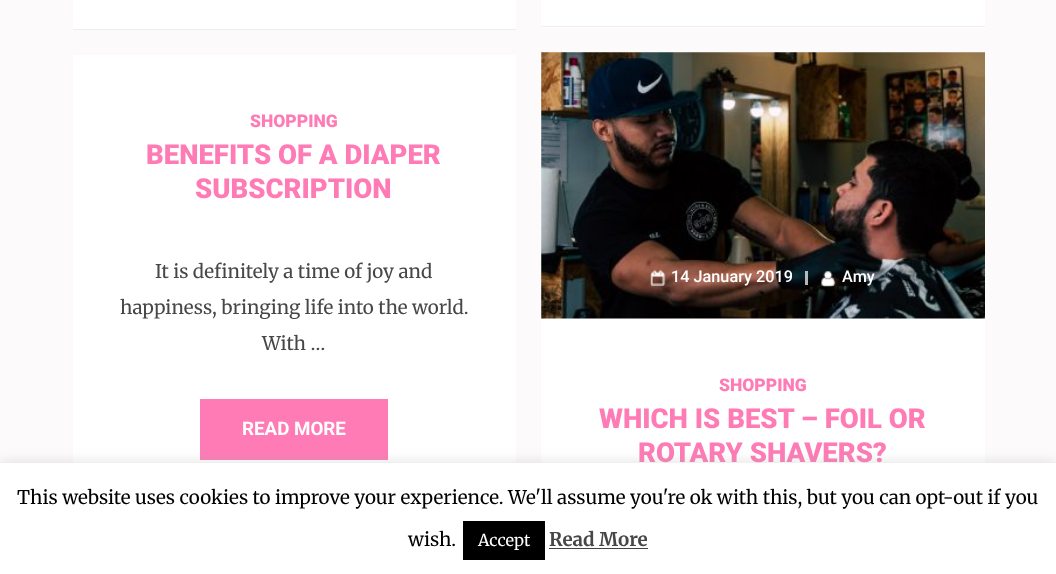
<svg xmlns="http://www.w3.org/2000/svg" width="1056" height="574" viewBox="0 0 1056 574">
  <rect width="100%" height="100%" fill="rgb(252,250,251)"/>
  <rect x="73" y="0" width="443" height="29" fill="rgb(255,255,255)"/>
  <rect x="73" y="29" width="443" height="1" fill="rgb(239,237,238)"/>
  <rect x="541" y="0" width="444" height="28" fill="rgb(255,255,255)"/>
  <rect x="541" y="26" width="444" height="1" fill="rgb(239,237,238)"/>
  <rect x="73" y="55" width="443" height="408" fill="rgb(255,255,255)"/>
  <text x="250" y="127" font-family="Roboto" font-size="17.5" font-weight="900" fill="rgb(254,123,181)">SHOPPING</text>
  <g font-family="Roboto" font-size="27.5" font-weight="900" fill="rgb(254,123,181)">
    <text x="146" y="164">BENEFITS OF A DIAPER</text>
    <text x="195" y="198">SUBSCRIPTION</text>
  </g>
  <g font-family="Merriweather" font-size="18.75" fill="rgb(71,71,71)">
    <text x="155" y="278">It is definitely a time of joy and</text>
    <text x="120" y="314">happiness, bringing life into the world.</text>
    <text x="262" y="350">With …</text>
  </g>
  <rect x="200" y="399" width="188" height="61" fill="rgb(254,123,181)"/>
  <text x="242" y="435" font-family="Roboto" font-size="18.75" font-weight="bold" fill="rgb(255,255,255)">READ MORE</text>
  <image x="541" y="52" width="444" height="267" href="pic1.png"/>
  <image x="650" y="269" width="16" height="18" href="pic2.png"/>
  <text x="671" y="282" font-family="Roboto" font-size="16.25" font-weight="500" fill="rgb(255,255,255)">14 January 2019</text>
  <rect x="805" y="271" width="3" height="14" fill="rgba(255,255,255,0.7)"/>
  <image x="821" y="271" width="15" height="16" href="pic3.png"/>
  <text x="842" y="282" font-family="Roboto" font-size="16.25" font-weight="500" fill="rgb(255,255,255)">Amy</text>
  <rect x="541" y="319" width="444" height="144" fill="rgb(255,255,255)"/>
  <text x="719" y="391" font-family="Roboto" font-size="17.5" font-weight="900" fill="rgb(254,123,181)">SHOPPING</text>
  <g font-family="Roboto" font-size="27.5" font-weight="900" fill="rgb(254,123,181)">
    <text x="599" y="428">WHICH IS BEST – FOIL OR</text>
    <text x="638" y="462">ROTARY SHAVERS?</text>
  </g>
  <rect x="0" y="461" width="1056" height="113" fill="rgba(172,171,171,0.3)" filter="blur(6px)"/>
  <rect x="0" y="463" width="1056" height="111" fill="rgb(255,255,255)"/>
  <g font-family="Merriweather" font-size="18.75" fill="rgb(0,0,0)">
    <text x="17" y="504">This website uses cookies to improve your experience. We'll assume you're ok with this, but you can opt-out if you</text>
    <text x="408" y="546">wish.</text>
  </g>
  <rect x="463" y="521" width="82" height="39" fill="rgb(0,0,0)"/>
  <text x="478" y="546" font-family="Merriweather" font-size="16.25" fill="rgb(255,255,255)">Accept</text>
  <text x="549" y="546" font-family="Merriweather" font-size="18.75" font-weight="bold" fill="rgb(71,71,71)">Read More</text>
  <rect x="549" y="548" width="99" height="1" fill="rgb(68,68,68)"/>
</svg>
